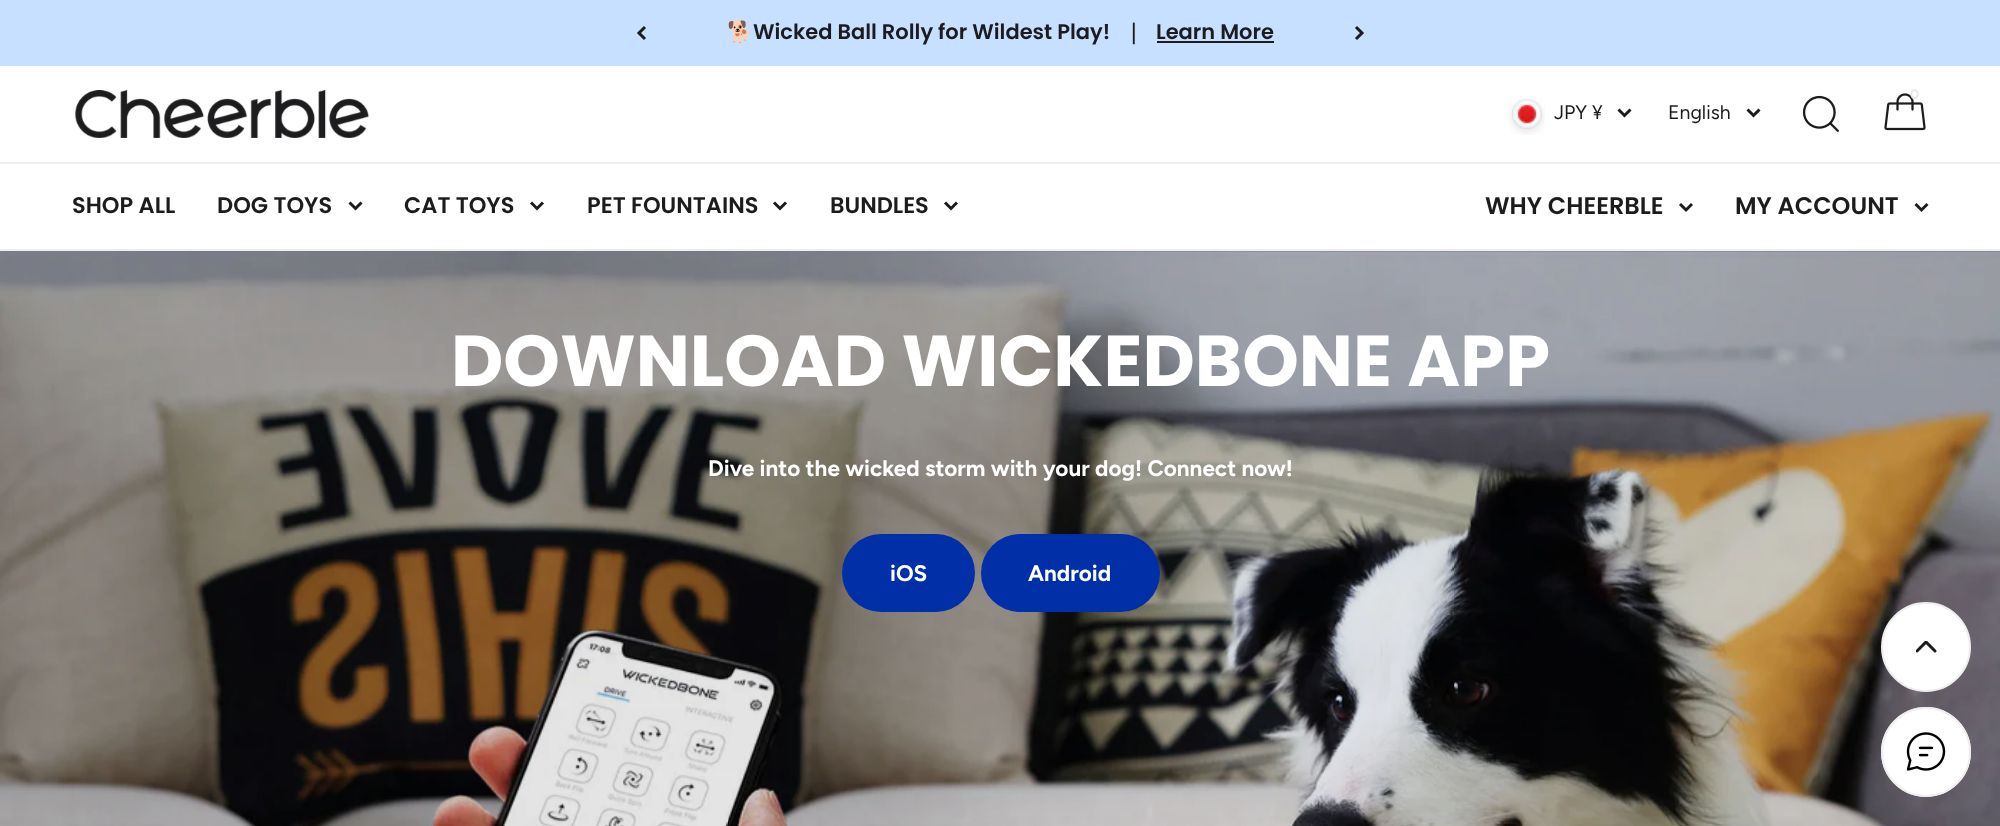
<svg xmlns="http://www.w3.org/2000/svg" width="2000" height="826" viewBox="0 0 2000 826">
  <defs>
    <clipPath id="clip1"><rect x="1916" y="641" width="21" height="12"/></clipPath>
  </defs>
  <rect width="100%" height="100%" fill="rgb(255,255,255)"/>
  <rect x="0" y="0" width="2000" height="66" fill="rgb(199,224,255)"/>
  <path d="M645 27L639 33L645 39" fill="none" stroke="rgb(28,28,30)" stroke-width="3"/>
  <text x="727" y="39" font-family="Noto Color Emoji" font-size="21" font-weight="bold" fill="rgb(28,28,30)">🐕</text>
  <text x="753" y="39" font-family="Poppins" font-size="21" font-weight="600" fill="rgb(28,28,30)">Wicked Ball Rolly for Wildest Play!</text>
  <text x="1123" y="39" font-family="WenQuanYi Zen Hei" font-size="21" font-weight="bold" fill="rgb(28,28,30)">｜</text>
  <text x="1156" y="39" font-family="Poppins" font-size="21" font-weight="600" fill="rgb(28,28,30)">Learn More</text>
  <rect x="1157" y="41" width="117" height="2" fill="rgb(28,28,30)"/>
  <path d="M1356 39L1362 33L1356 27" fill="none" stroke="rgb(28,28,30)" stroke-width="3"/>
  <rect x="0" y="162" width="2000" height="2" fill="rgb(238,238,238)"/>
  <image x="75" y="90" width="294" height="48" href="pic1.png"/>
  <image x="1509" y="99" width="36" height="36" href="pic2.png"/>
  <text x="1554" y="119" font-family="Figtree" font-size="19.5" fill="rgb(28,28,30)">JPY ¥</text>
  <path d="M1618.5 109.5L1624.5 115.5L1630.5 109.5" fill="none" stroke="rgb(28,28,30)" stroke-width="3"/>
  <text x="1668" y="119" font-family="Figtree" font-size="19.5" fill="rgb(28,28,30)">English</text>
  <path d="M1747.5 109.5L1753.5 115.5L1759.5 109.5" fill="none" stroke="rgb(28,28,30)" stroke-width="3"/>
  <image x="1802" y="95" width="37" height="37" href="pic3.png"/>
  <image x="1884" y="93" width="42" height="38" href="pic4.png"/>
  <text x="1910" y="99" font-family="Figtree" font-size="14" font-weight="bold" fill="rgb(231,231,231)">0</text>
  <rect x="0" y="249" width="2000" height="2" fill="rgb(238,238,238)"/>
  <g font-family="Poppins" font-size="22.5" font-weight="600" fill="rgb(28,28,30)">
    <text x="72" y="213">SHOP ALL</text>
    <text x="217" y="213">DOG TOYS</text>
  </g>
  <path d="M349.5 202.5L355.5 208.5L361.5 202.5" fill="none" stroke="rgb(28,28,30)" stroke-width="3"/>
  <text x="404" y="213" font-family="Poppins" font-size="22.5" font-weight="600" fill="rgb(28,28,30)">CAT TOYS</text>
  <path d="M531 202.5L537 208.5L543 202.5" fill="none" stroke="rgb(28,28,30)" stroke-width="3"/>
  <text x="587" y="213" font-family="Poppins" font-size="22.5" font-weight="600" fill="rgb(28,28,30)">PET FOUNTAINS</text>
  <path d="M774 202.5L780 208.5L786 202.5" fill="none" stroke="rgb(28,28,30)" stroke-width="3"/>
  <text x="830" y="213" font-family="Poppins" font-size="22.5" font-weight="600" fill="rgb(28,28,30)">BUNDLES</text>
  <path d="M945 202.5L951 208.5L957 202.5" fill="none" stroke="rgb(28,28,30)" stroke-width="3"/>
  <text x="1485" y="214" font-family="Poppins" font-size="24" font-weight="600" fill="rgb(28,28,30)">WHY CHEERBLE</text>
  <path d="M1680 204L1686 210L1692 204" fill="none" stroke="rgb(28,28,30)" stroke-width="3"/>
  <text x="1735" y="214" font-family="Poppins" font-size="24" font-weight="600" fill="rgb(28,28,30)">MY ACCOUNT</text>
  <path d="M1915.5 204L1921.5 210L1927.5 204" fill="none" stroke="rgb(28,28,30)" stroke-width="3"/>
  <image x="0" y="251" width="2000" height="575" href="pic5.png"/>
  <text x="451" y="386" font-family="Poppins" font-size="72" font-weight="bold" fill="rgb(255,255,255)">DOWNLOAD WICKEDBONE APP</text>
  <text x="708" y="476" font-family="Figtree" font-size="22.5" font-weight="bold" fill="rgb(255,255,255)">Dive into the wicked storm with your dog! Connect now!</text>
  <rect x="842" y="534" width="133" height="78" rx="39" fill="rgb(0,47,167)"/>
  <text x="890" y="581" font-family="Figtree" font-size="22.5" font-weight="bold" fill="rgb(255,255,255)">iOS</text>
  <rect x="981" y="534" width="179" height="78" rx="39" fill="rgb(0,47,167)"/>
  <text x="1028" y="581" font-family="Figtree" font-size="22.5" font-weight="bold" fill="rgb(255,255,255)">Android</text>
  <circle cx="1926" cy="647" r="44" fill="rgb(255,255,255)" stroke="rgb(238,238,238)" stroke-width="2"/>
  <g clip-path="url(#clip1)">
    <path d="M1935 651L1926 642L1917 651" fill="none" stroke="rgb(28,28,30)" stroke-width="3" stroke-linecap="round" stroke-linejoin="round"/>
  </g>
  <circle cx="1926" cy="752" r="45" fill="rgb(255,255,255)"/>
  <image x="1906" y="732" width="40" height="39" href="pic6.png"/>
  <circle cx="1926" cy="752" r="44" fill="none" stroke="rgb(238,238,238)" stroke-width="2"/>
</svg>
